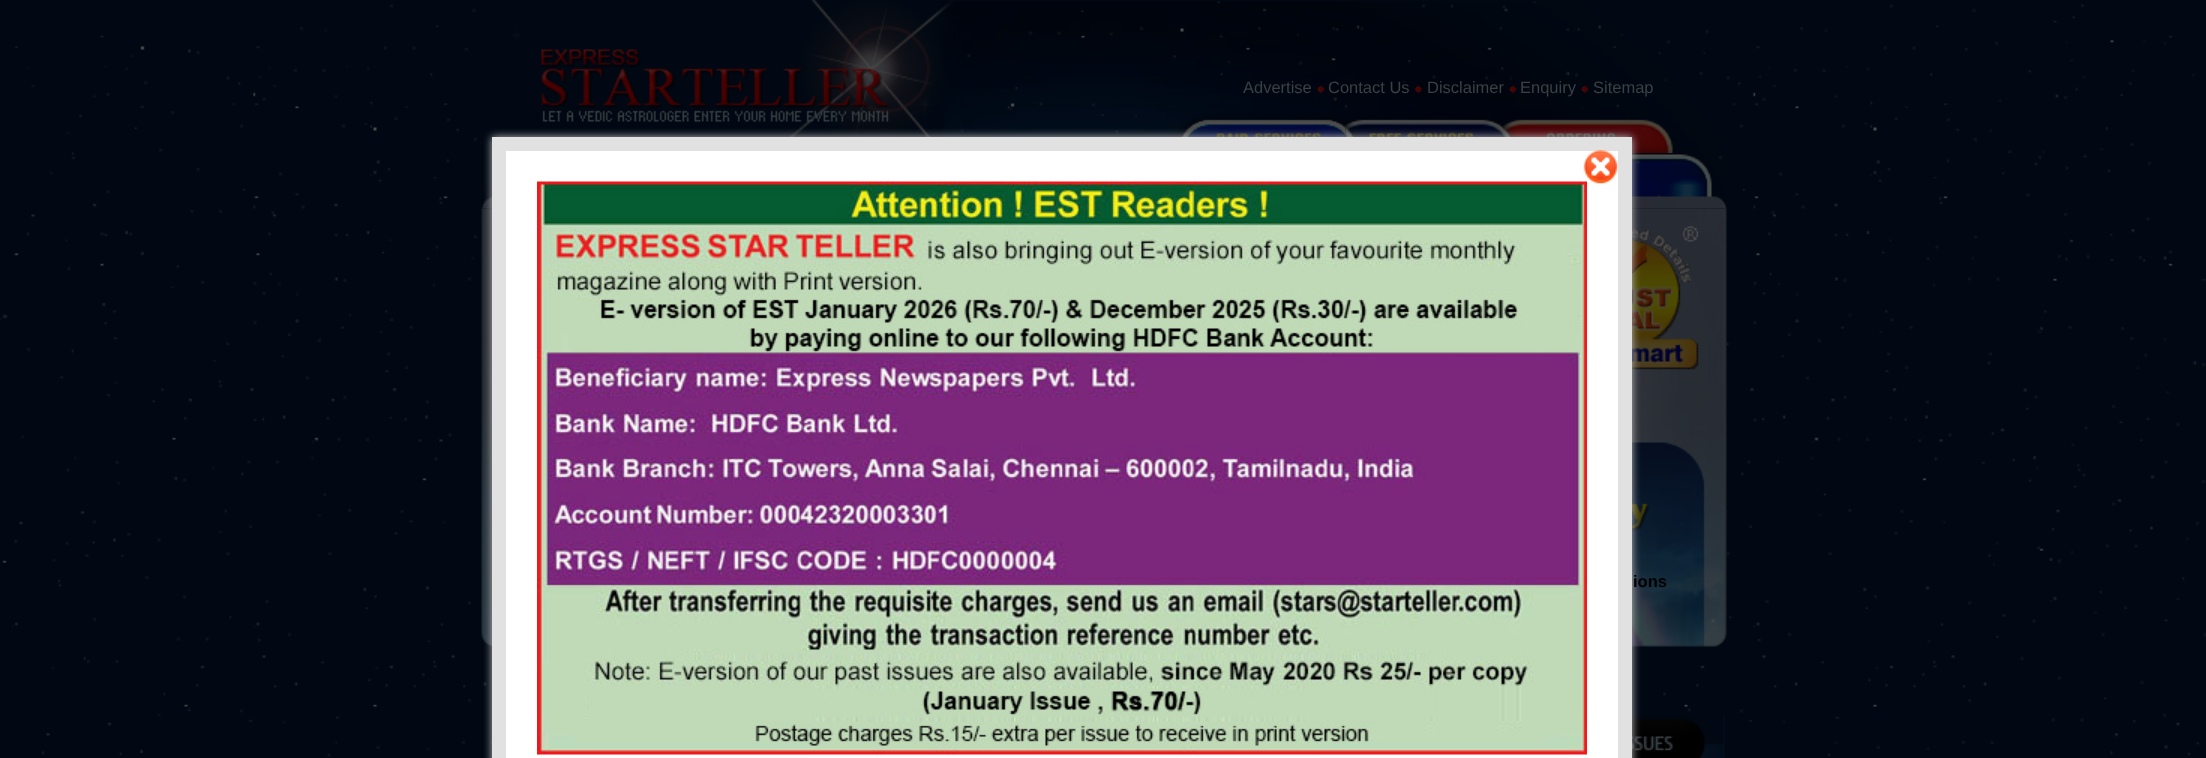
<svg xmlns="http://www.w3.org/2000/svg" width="2206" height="758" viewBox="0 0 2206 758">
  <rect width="100%" height="100%" fill="rgb(1,8,19)"/>
  <image x="0" y="4" width="2206" height="753" href="pic1.png"/>
  <image x="481" y="1" width="1246" height="208" href="pic2.png"/>
  <image x="481" y="0" width="481" height="153" href="pic3.png"/>
  <text x="1243" y="93" font-family="Liberation Sans" font-size="16.5" fill="rgb(59,64,68)">Advertise</text>
  <image x="1317" y="85" width="8" height="8" href="pic4.png"/>
  <text x="1328" y="93" font-family="Liberation Sans" font-size="16.5" fill="rgb(59,64,68)">Contact Us</text>
  <image x="1414" y="85" width="8" height="8" href="pic5.png"/>
  <text x="1427" y="93" font-family="Liberation Sans" font-size="16.5" fill="rgb(59,64,68)">Disclaimer</text>
  <image x="1509" y="85" width="8" height="8" href="pic6.png"/>
  <text x="1520" y="93" font-family="Liberation Sans" font-size="16.5" fill="rgb(59,64,68)">Enquiry</text>
  <image x="1581" y="85" width="8" height="8" href="pic7.png"/>
  <text x="1593" y="93" font-family="Liberation Sans" font-size="16.5" fill="rgb(59,64,68)">Sitemap</text>
  <image x="1171" y="109" width="175" height="28" href="pic8.png"/>
  <image x="1345" y="113" width="158" height="24" href="pic9.png"/>
  <image x="1503" y="109" width="170" height="44" href="pic10.png"/>
  <rect x="1720" y="146" width="4" height="5" fill="rgb(1,8,19)"/>
  <image x="481" y="208" width="1246" height="439" href="pic13.png"/>
  <image x="1632" y="226" width="67" height="144" href="pic14.png"/>
  <image x="1632" y="503" width="18" height="29" href="pic15.png"/>
  <image x="1723" y="714" width="2" height="44" href="pic16.png"/>
  <image x="1632" y="714" width="92" height="44" href="pic17.png"/>
  <rect x="492" y="137" width="1140" height="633" fill="rgb(192,192,192)" filter="blur(4px)"/>
  <rect x="499" y="144" width="1126" height="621" fill="rgb(255,255,255)" stroke="rgb(225,225,225)" stroke-width="14"/>
  <image x="537" y="181" width="1050" height="574" href="pic12.png"/>
  <image x="1583" y="150" width="35" height="34" href="pic11.png"/>
  <text x="1633" y="587" font-family="Liberation Sans" font-size="16.5" font-weight="bold" fill="rgb(0,0,0)">ions</text>
</svg>
